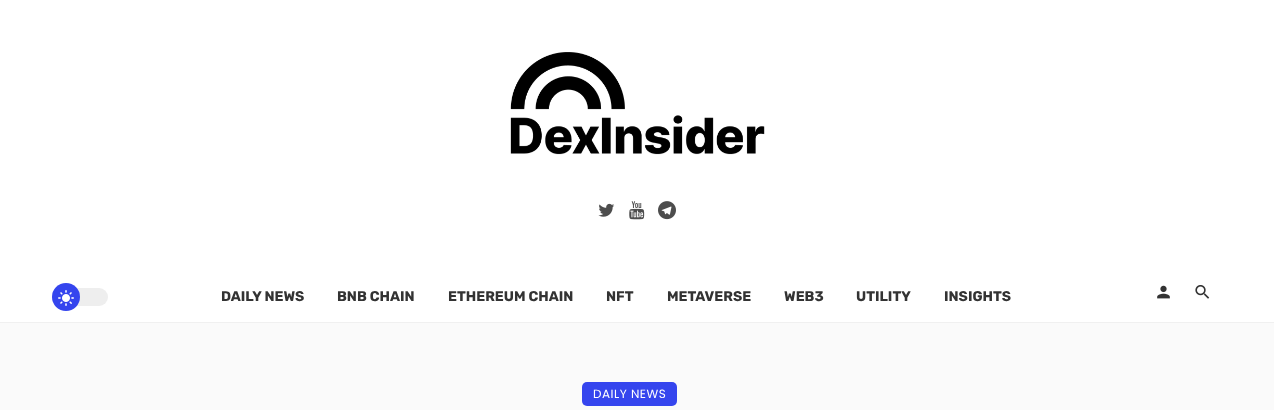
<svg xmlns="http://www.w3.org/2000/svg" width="1274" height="410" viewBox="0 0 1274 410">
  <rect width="100%" height="100%" fill="rgb(255,255,255)"/>
  <rect x="0" y="322" width="1274" height="1" fill="rgb(240,240,240)"/>
  <image x="510" y="52" width="255" height="103" href="pic1.png"/>
  <image x="598" y="203" width="17" height="14" href="pic2.png"/>
  <image x="629" y="201" width="16" height="19" href="pic3.png"/>
  <image x="658" y="201" width="18" height="19" href="pic4.png"/>
  <rect x="52" y="288" width="56" height="18" rx="9" fill="rgb(238,238,238)"/>
  <circle cx="66" cy="297" r="14" fill="rgb(53,69,238)"/>
  <image x="58" y="290" width="16" height="16" href="pic5.png"/>
  <g font-family="Rubik" font-size="14" font-weight="bold" fill="rgb(51,51,51)">
    <text x="221" y="301">DAILY NEWS</text>
    <text x="337" y="301">BNB CHAIN</text>
    <text x="448" y="301">ETHEREUM CHAIN</text>
    <text x="606" y="301">NFT</text>
    <text x="667" y="301">METAVERSE</text>
    <text x="784" y="301">WEB3</text>
    <text x="856" y="301">UTILITY</text>
    <text x="944" y="301">INSIGHTS</text>
  </g>
  <image x="1157" y="285" width="13" height="14" href="pic6.png"/>
  <image x="1195" y="285" width="15" height="14" href="pic7.png"/>
  <rect x="0" y="323" width="1274" height="87" fill="rgb(250,250,250)"/>
  <rect x="582" y="382" width="95" height="24" rx="5" fill="rgb(53,69,238)"/>
  <text x="593" y="398" font-family="Poppins" font-size="12" letter-spacing="0.5" fill="rgb(255,255,255)">DAILY NEWS</text>
</svg>
